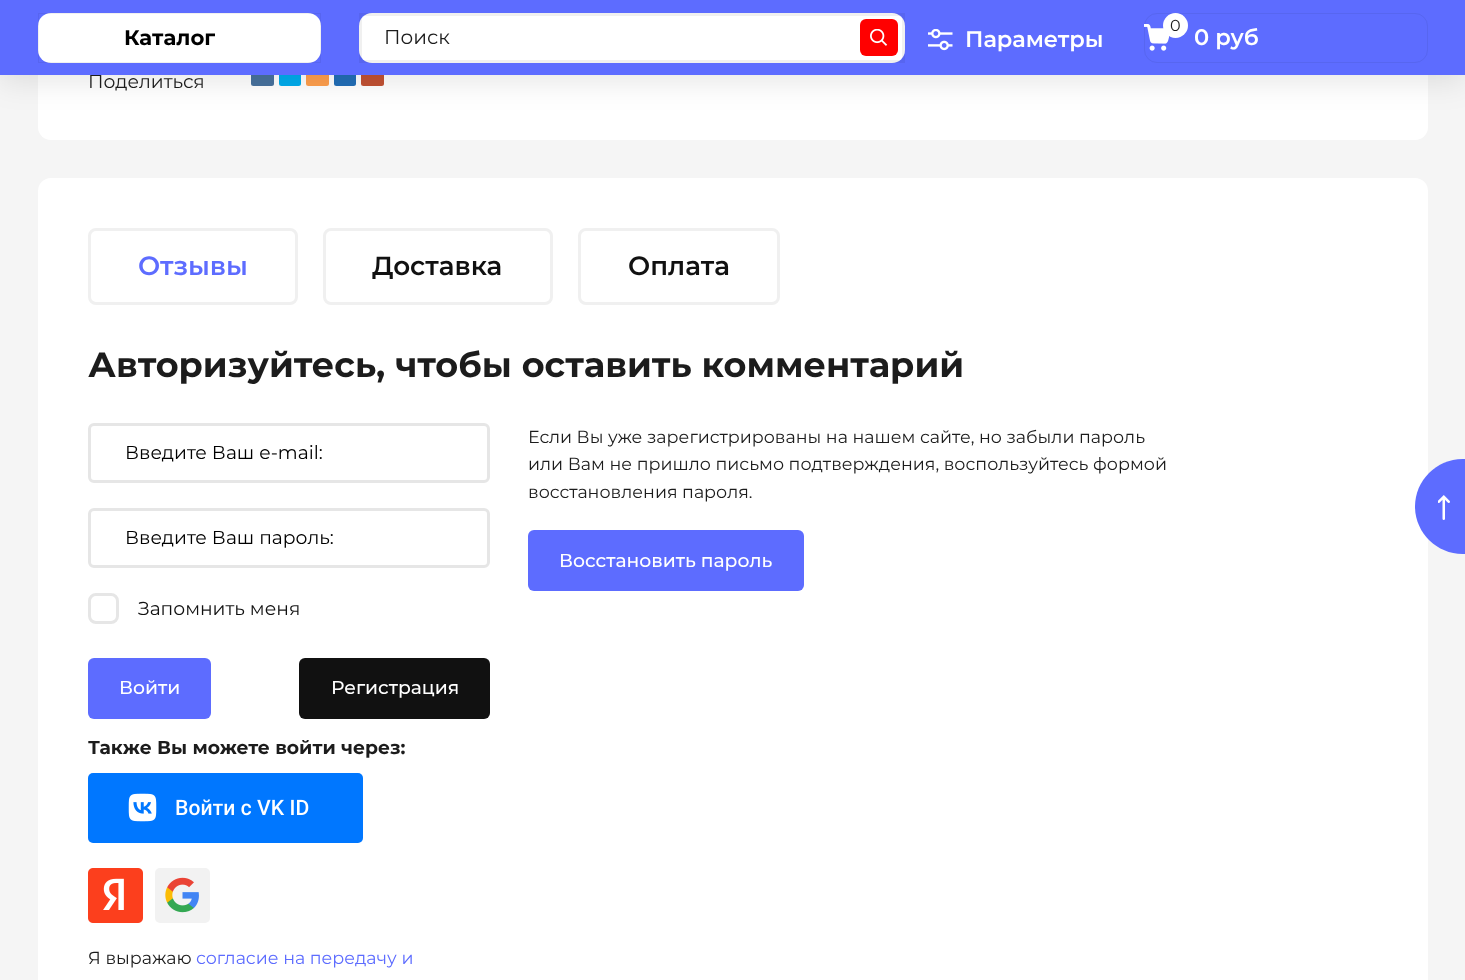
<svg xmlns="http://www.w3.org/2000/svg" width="1465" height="980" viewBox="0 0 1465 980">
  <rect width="100%" height="100%" fill="rgb(245,245,245)"/>
  <rect x="38" y="-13" width="1390" height="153" rx="13" fill="rgb(255,255,255)"/>
  <rect x="251" y="64" width="23" height="22" rx="2.5" fill="rgb(72,114,158)"/>
  <rect x="279" y="64" width="22" height="22" rx="2.5" fill="rgb(0,172,237)"/>
  <rect x="306" y="64" width="23" height="22" rx="2.5" fill="rgb(255,159,77)"/>
  <rect x="334" y="64" width="22" height="22" rx="2.5" fill="rgb(34,110,183)"/>
  <rect x="361" y="64" width="23" height="22" rx="2.5" fill="rgb(194,82,52)"/>
  <rect x="0" y="6" width="1465" height="75" fill="rgba(0,0,0,0.1)" filter="blur(15.5px)"/>
  <text x="88" y="88" font-family="Montserrat" font-size="18.75" fill="rgb(28,28,28)">Поделиться</text>
  <rect x="0" y="0" width="1465" height="75" fill="rgb(93,108,255)"/>
  <rect x="38" y="13" width="283" height="50" rx="13" fill="rgb(255,255,255)"/>
  <rect x="38.5" y="13.5" width="282" height="49" fill="none" stroke="rgba(0,0,0,0.06)"/>
  <text x="124" y="45" font-family="Montserrat" font-size="21.25" font-weight="bold" fill="rgb(0,0,0)">Каталог</text>
  <rect x="359" y="13" width="546" height="50" rx="13" fill="rgb(255,255,255)"/>
  <rect x="360.5" y="14.5" width="543" height="47" fill="none" stroke="rgba(0,0,0,0.06)" stroke-width="3"/>
  <text x="384" y="44" font-family="Montserrat" font-size="20" fill="rgb(28,28,28)">Поиск</text>
  <rect x="860" y="19" width="38" height="37" rx="6" fill="rgb(255,0,0)"/>
  <image x="870" y="29" width="18" height="17" href="pic1.png"/>
  <image x="928" y="29" width="25" height="22" href="pic2.png"/>
  <text x="965" y="47" font-family="Montserrat" font-size="22.5" font-weight="600" fill="rgb(255,255,255)">Параметры</text>
  <rect x="1144.5" y="13.5" width="283" height="49" rx="12.5" fill="none" stroke="rgb(87,102,240)"/>
  <image x="1144" y="24" width="25" height="27" href="pic3.png"/>
  <circle cx="1175.5" cy="25.5" r="12.5" fill="rgb(255,255,255)"/>
  <text x="1170" y="31" font-family="Montserrat" font-size="16" fill="rgb(28,28,28)">0</text>
  <text x="1194" y="45" font-family="Montserrat" font-size="22.5" font-weight="600" fill="rgb(255,255,255)">0 руб</text>
  <rect x="38" y="178" width="1390" height="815" rx="13" fill="rgb(255,255,255)"/>
  <rect x="89.5" y="229.5" width="207" height="74" rx="6.5" fill="none" stroke="rgb(240,240,240)" stroke-width="3"/>
  <text x="138" y="275" font-family="Montserrat" font-size="26.25" font-weight="600" fill="rgb(93,108,255)">Отзывы</text>
  <rect x="324.5" y="229.5" width="227" height="74" rx="6.5" fill="none" stroke="rgb(240,240,240)" stroke-width="3"/>
  <text x="372" y="275" font-family="Montserrat" font-size="26.25" font-weight="600" fill="rgb(17,17,17)">Доставка</text>
  <rect x="579.5" y="229.5" width="199" height="74" rx="6.5" fill="none" stroke="rgb(240,240,240)" stroke-width="3"/>
  <text x="628" y="275" font-family="Montserrat" font-size="26.25" font-weight="600" fill="rgb(17,17,17)">Оплата</text>
  <text x="88" y="377" font-family="Montserrat" font-size="35" font-weight="bold" fill="rgb(28,28,28)">Авторизуйтесь, чтобы оставить комментарий</text>
  <rect x="89.5" y="424.5" width="399" height="57" rx="4.5" fill="none" stroke="rgb(230,230,230)" stroke-width="3"/>
  <text x="125" y="459" font-family="Montserrat" font-size="18.75" fill="rgb(0,0,0)">Введите Ваш e-mail:</text>
  <rect x="89.5" y="509.5" width="399" height="57" rx="4.5" fill="none" stroke="rgb(230,230,230)" stroke-width="3"/>
  <text x="125" y="544" font-family="Montserrat" font-size="18.75" fill="rgb(0,0,0)">Введите Ваш пароль:</text>
  <rect x="89.5" y="594.5" width="28" height="28" rx="6.5" fill="none" stroke="rgb(230,230,230)" stroke-width="3"/>
  <text x="138" y="615" font-family="Montserrat" font-size="18.75" fill="rgb(17,17,17)">Запомнить меня</text>
  <rect x="88" y="658" width="123" height="61" rx="6" fill="rgb(93,108,255)"/>
  <text x="119" y="694" font-family="Montserrat" font-size="18.75" font-weight="500" fill="rgb(255,255,255)">Войти</text>
  <rect x="299" y="658" width="191" height="61" rx="6" fill="rgb(17,17,17)"/>
  <text x="331" y="694" font-family="Montserrat" font-size="18.75" font-weight="500" fill="rgb(255,255,255)">Регистрация</text>
  <g font-family="Montserrat" font-size="17.5" fill="rgb(28,28,28)">
    <text>
      <tspan x="528" y="443">Если Вы уже зарегистрированы на нашем сайте, но забыли пароль</tspan>
      <tspan x="528" y="470">или Вам не пришло письмо подтверждения, воспользуйтесь формой</tspan>
      <tspan x="528" y="498">восстановления пароля.</tspan>
    </text>
  </g>
  <rect x="528" y="530" width="276" height="61" rx="6" fill="rgb(93,108,255)"/>
  <text x="559" y="567" font-family="Montserrat" font-size="18.75" font-weight="500" fill="rgb(255,255,255)">Восстановить пароль</text>
  <text x="88" y="754" font-family="Montserrat" font-size="18.75" font-weight="bold" fill="rgb(28,28,28)">Также Вы можете войти через:</text>
  <rect x="88" y="773" width="275" height="70" rx="5" fill="rgb(0,119,255)"/>
  <image x="128" y="793" width="181" height="29" href="pic4.png"/>
  <image x="88" y="868" width="55" height="55" href="pic5.png"/>
  <rect x="155" y="868" width="55" height="55" rx="5" fill="rgb(242,242,242)"/>
  <image x="165" y="877" width="34" height="36" href="pic6.png"/>
  <text x="88" y="964" font-family="Montserrat" font-size="17.5" fill="rgb(28,28,28)">Я выражаю</text>
  <text x="196" y="964" font-family="Montserrat" font-size="17.5" fill="rgb(93,108,255)">согласие на передачу и</text>
  <path d="M1462.5 459H1465V554H1462.5C1436.5 554 1415 532.5 1415 506.5C1415 480.5 1436.5 459 1462.5 459Z" fill="rgb(93,108,255)"/>
  <image x="1438" y="495" width="12" height="25" href="pic7.png"/>
</svg>
